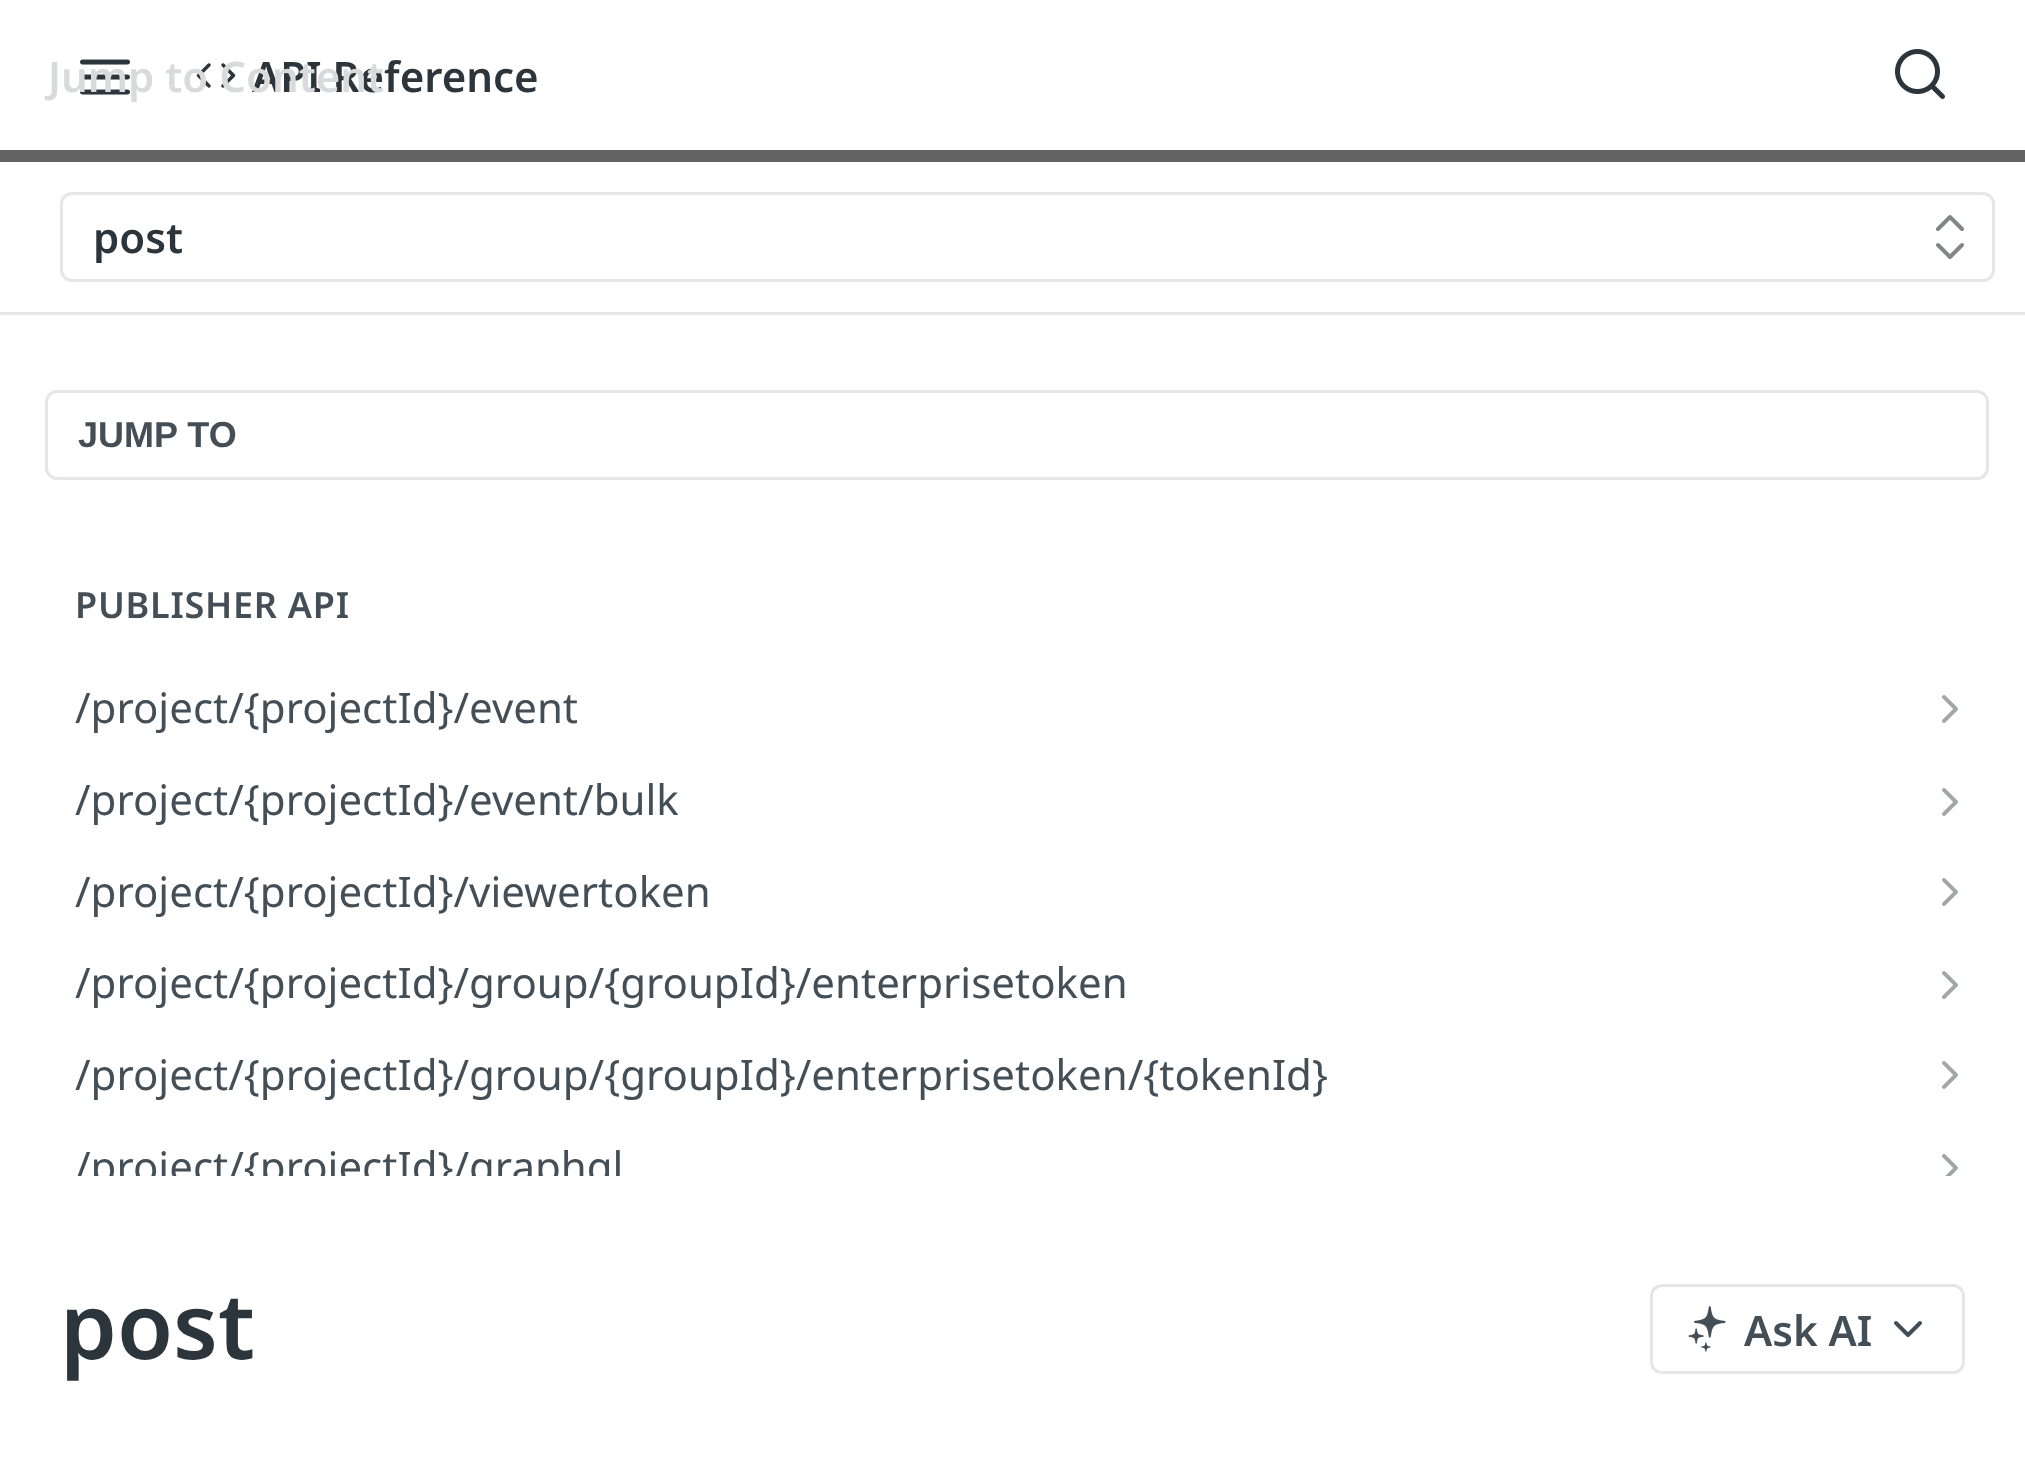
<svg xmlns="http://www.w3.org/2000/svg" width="2025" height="1472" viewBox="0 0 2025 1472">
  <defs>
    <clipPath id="clip1"><rect x="0" y="312" width="2025" height="864"/></clipPath>
  </defs>
  <rect width="100%" height="100%" fill="rgb(255,255,255)"/>
  <rect x="0" y="312" width="2025" height="3" fill="rgb(230,230,230)"/>
  <rect x="0" y="150" width="2025" height="12" fill="rgb(98,98,98)"/>
  <image x="80" y="59" width="50" height="36" href="pic1.png"/>
  <image x="196" y="63" width="40" height="25" href="pic2.png"/>
  <text x="252" y="92" font-family="Noto Sans" font-size="42" font-weight="600" fill="rgb(43,53,59)">API Reference</text>
  <text x="48" y="92" font-family="Noto Sans" font-size="42" font-weight="600" fill="rgb(217,218,220)">Jump to Content</text>
  <image x="1895" y="49" width="50" height="50" href="pic3.png"/>
  <rect x="61.5" y="193.5" width="1932" height="87" rx="10.5" fill="none" stroke="rgb(230,230,230)" stroke-width="3"/>
  <text x="93" y="253" font-family="Noto Sans" font-size="42" font-weight="600" fill="rgb(43,53,59)">post</text>
  <path d="M1938 245L1950 257L1962 245M1962 229L1950 217L1938 229" fill="none" stroke="rgb(128,134,137)" stroke-width="4" stroke-linecap="round" stroke-linejoin="round"/>
  <rect x="46.5" y="391.5" width="1941" height="87" rx="10.5" fill="none" stroke="rgb(230,230,230)" stroke-width="3"/>
  <text x="78" y="447" font-family="Liberation Sans" font-size="36" font-weight="bold" fill="rgb(67,78,86)">JUMP TO</text>
  <text x="75" y="618" font-family="Noto Sans" font-size="36" font-weight="600" letter-spacing="0.75" fill="rgb(67,78,86)">PUBLISHER API</text>
  <text x="75" y="723" font-family="Noto Sans" font-size="42" fill="rgb(67,78,86)">/project/{projectId}/event</text>
  <image x="1942" y="695" width="16" height="28" href="pic4.png"/>
  <text x="75" y="815" font-family="Noto Sans" font-size="42" fill="rgb(67,78,86)">/project/{projectId}/event/bulk</text>
  <image x="1942" y="788" width="16" height="28" href="pic4.png"/>
  <text x="75" y="907" font-family="Noto Sans" font-size="42" fill="rgb(67,78,86)">/project/{projectId}/viewertoken</text>
  <image x="1942" y="878" width="16" height="28" href="pic4.png"/>
  <text x="75" y="998" font-family="Noto Sans" font-size="42" fill="rgb(67,78,86)">/project/{projectId}/group/{groupId}/enterprisetoken</text>
  <image x="1942" y="971" width="16" height="28" href="pic4.png"/>
  <text x="75" y="1090" font-family="Noto Sans" font-size="42" fill="rgb(67,78,86)">/project/{projectId}/group/{groupId}/enterprisetoken/{tokenId}</text>
  <image x="1942" y="1061" width="16" height="28" href="pic4.png"/>
  <g clip-path="url(#clip1)">
    <text x="75" y="1182" font-family="Noto Sans" font-size="42" fill="rgb(67,78,86)">/project/{projectId}/graphql</text>
  </g>
  <image x="1942" y="1154" width="16" height="22" href="pic5.png"/>
  <text x="60" y="1359" font-family="Noto Sans" font-size="91" font-weight="600" fill="rgb(43,53,59)">post</text>
  <rect x="1651.5" y="1285.5" width="312" height="87" rx="10.5" fill="none" stroke="rgb(230,230,230)" stroke-width="3"/>
  <image x="1688" y="1306" width="38" height="46" href="pic6.png"/>
  <text x="1744" y="1346" font-family="Noto Sans" font-size="42" font-weight="600" fill="rgb(67,78,86)">Ask AI</text>
  <path d="M1896 1323L1908 1335L1920 1323" fill="none" stroke="rgb(67,78,86)" stroke-width="4" stroke-linecap="round" stroke-linejoin="round"/>
</svg>
